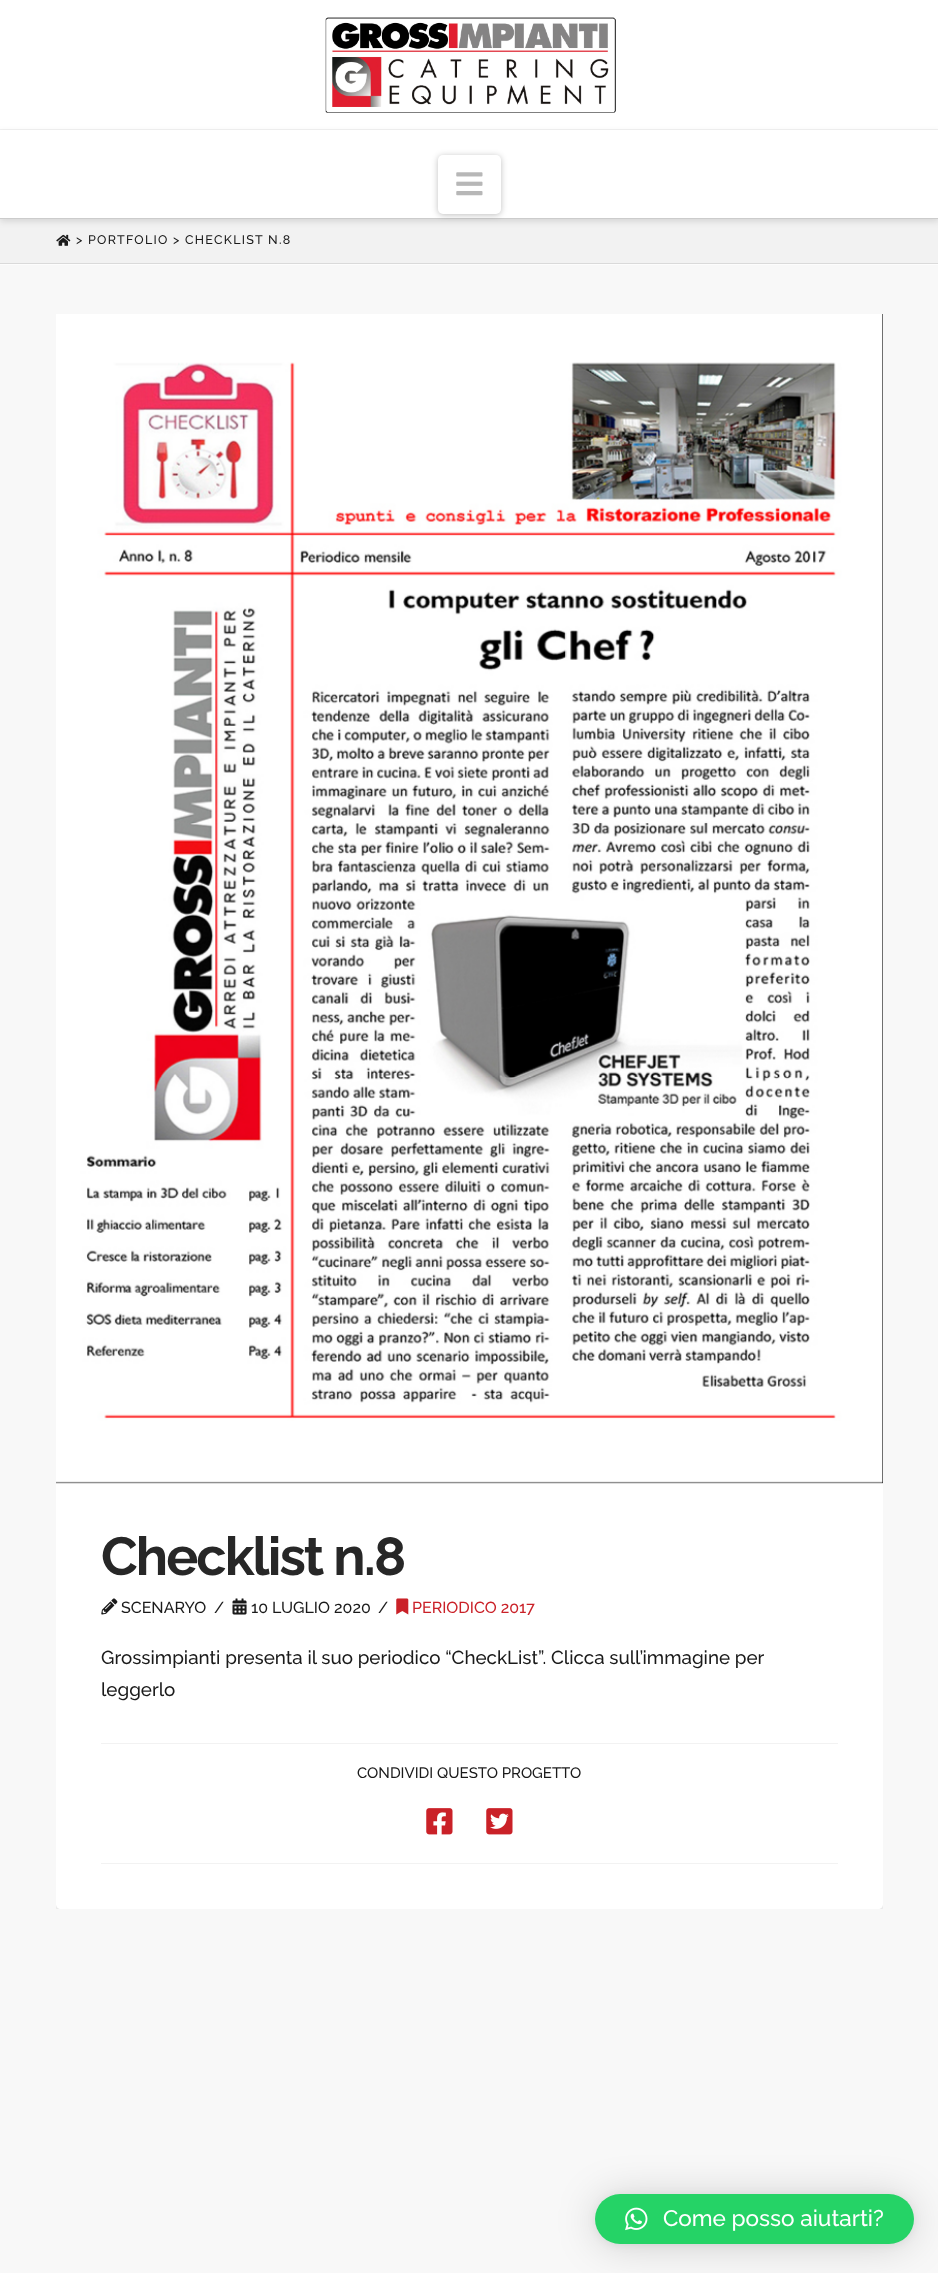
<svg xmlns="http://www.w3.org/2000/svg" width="938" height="2273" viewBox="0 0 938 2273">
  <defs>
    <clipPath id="clip1"><rect x="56" y="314" width="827" height="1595"/></clipPath>
  </defs>
  <rect width="100%" height="100%" fill="rgb(248,248,248)"/>
  <rect x="0" y="0" width="938" height="129" fill="rgb(255,255,255)"/>
  <rect x="0" y="129" width="938" height="1" fill="rgb(242,242,242)"/>
  <image x="325" y="17" width="291" height="96" href="pic1.png"/>
  <rect x="0" y="219" width="938" height="44" fill="rgb(242,242,242)"/>
  <rect x="0" y="133" width="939" height="88" fill="rgba(0,0,0,0.13)" filter="blur(3.5px)"/>
  <rect x="0" y="130" width="938" height="88" fill="rgb(255,255,255)"/>
  <rect x="0" y="218" width="938" height="1" fill="rgb(204,204,204)"/>
  <rect x="438" y="156" width="63" height="59" rx="5" fill="rgba(0,0,0,0.25)" filter="blur(3px)"/>
  <rect x="438" y="155" width="63" height="59" rx="5" fill="rgb(255,255,255)"/>
  <image x="456" y="172" width="27" height="24" href="pic2.png"/>
  <path d="M0 264V265H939V220V264Z" fill="rgb(253,253,253)"/>
  <rect x="0" y="263" width="938" height="1" fill="rgb(218,218,218)"/>
  <image x="56" y="234" width="15" height="12" href="pic3.png"/>
  <text x="76" y="244" font-family="Raleway" font-size="12.5" font-weight="500" letter-spacing="1.25" fill="rgb(26,26,26)">&gt; PORTFOLIO &gt; CHECKLIST N.8</text>
  <g clip-path="url(#clip1)">
    <rect x="56" y="1486" width="827" height="425" rx="5" fill="rgba(0,0,0,0.13)" filter="blur(3.5px)"/>
  </g>
  <rect x="56" y="1483" width="827" height="1" fill="rgb(221,221,221)"/>
  <rect x="56" y="314" width="827" height="1169" fill="rgb(0,0,0)"/>
  <image x="56" y="314" width="827" height="1169" href="pic4.png"/>
  <path d="M56 1484H883V1904C883 1907 881 1909 878 1909H61C58 1909 56 1907 56 1904Z" fill="rgb(255,255,255)"/>
  <text x="101" y="1575" font-family="Raleway" font-size="53.5" font-weight="bold" letter-spacing="-1.9" fill="rgb(39,39,39)">Checklist n.8</text>
  <image x="101" y="1598" width="17" height="17" href="pic5.png"/>
  <g font-family="Raleway" font-size="16" font-weight="500" fill="rgb(26,26,26)">
    <text x="121" y="1613">SCENARYO</text>
    <text x="214" y="1613">/</text>
  </g>
  <image x="232" y="1598" width="15" height="17" href="pic6.png"/>
  <g font-family="Raleway" font-size="16" font-weight="500" fill="rgb(26,26,26)">
    <text x="251" y="1613">10 LUGLIO 2020</text>
    <text x="378" y="1613">/</text>
  </g>
  <image x="396" y="1598" width="13" height="17" href="pic7.png"/>
  <text x="412" y="1613" font-family="Raleway" font-size="16" font-weight="500" fill="rgb(202,33,40)">PERIODICO 2017</text>
  <g font-family="Raleway" font-size="18.75" font-weight="500" fill="rgb(26,26,26)">
    <text>
      <tspan x="101" y="1664">Grossimpianti presenta il suo periodico “CheckList”. Clicca sull’immagine per</tspan>
      <tspan x="101" y="1696">leggerlo</tspan>
    </text>
  </g>
  <rect x="101" y="1743" width="737" height="1" fill="rgb(242,242,242)"/>
  <rect x="101" y="1863" width="737" height="1" fill="rgb(242,242,242)"/>
  <text x="357" y="1778" font-family="Raleway" font-size="15" font-weight="500" fill="rgb(26,26,26)">CONDIVIDI QUESTO PROGETTO</text>
  <image x="426" y="1808" width="27" height="27" href="pic8.png"/>
  <image x="486" y="1808" width="27" height="27" href="pic9.png"/>
  <rect x="595" y="2196" width="319" height="50" rx="25" fill="rgba(0,0,0,0.16)" filter="blur(20px)"/>
  <rect x="595" y="2195" width="319" height="50" rx="25" fill="rgba(0,0,0,0.06)" filter="blur(4px)"/>
  <rect x="595" y="2194" width="319" height="50" rx="25" fill="rgb(37,211,102)"/>
  <image x="625" y="2207" width="23" height="24" href="pic10.png"/>
  <text x="663" y="2226" font-family="Raleway" font-size="22.5" font-weight="500" fill="rgb(255,255,255)">Come posso aiutarti?</text>
</svg>
